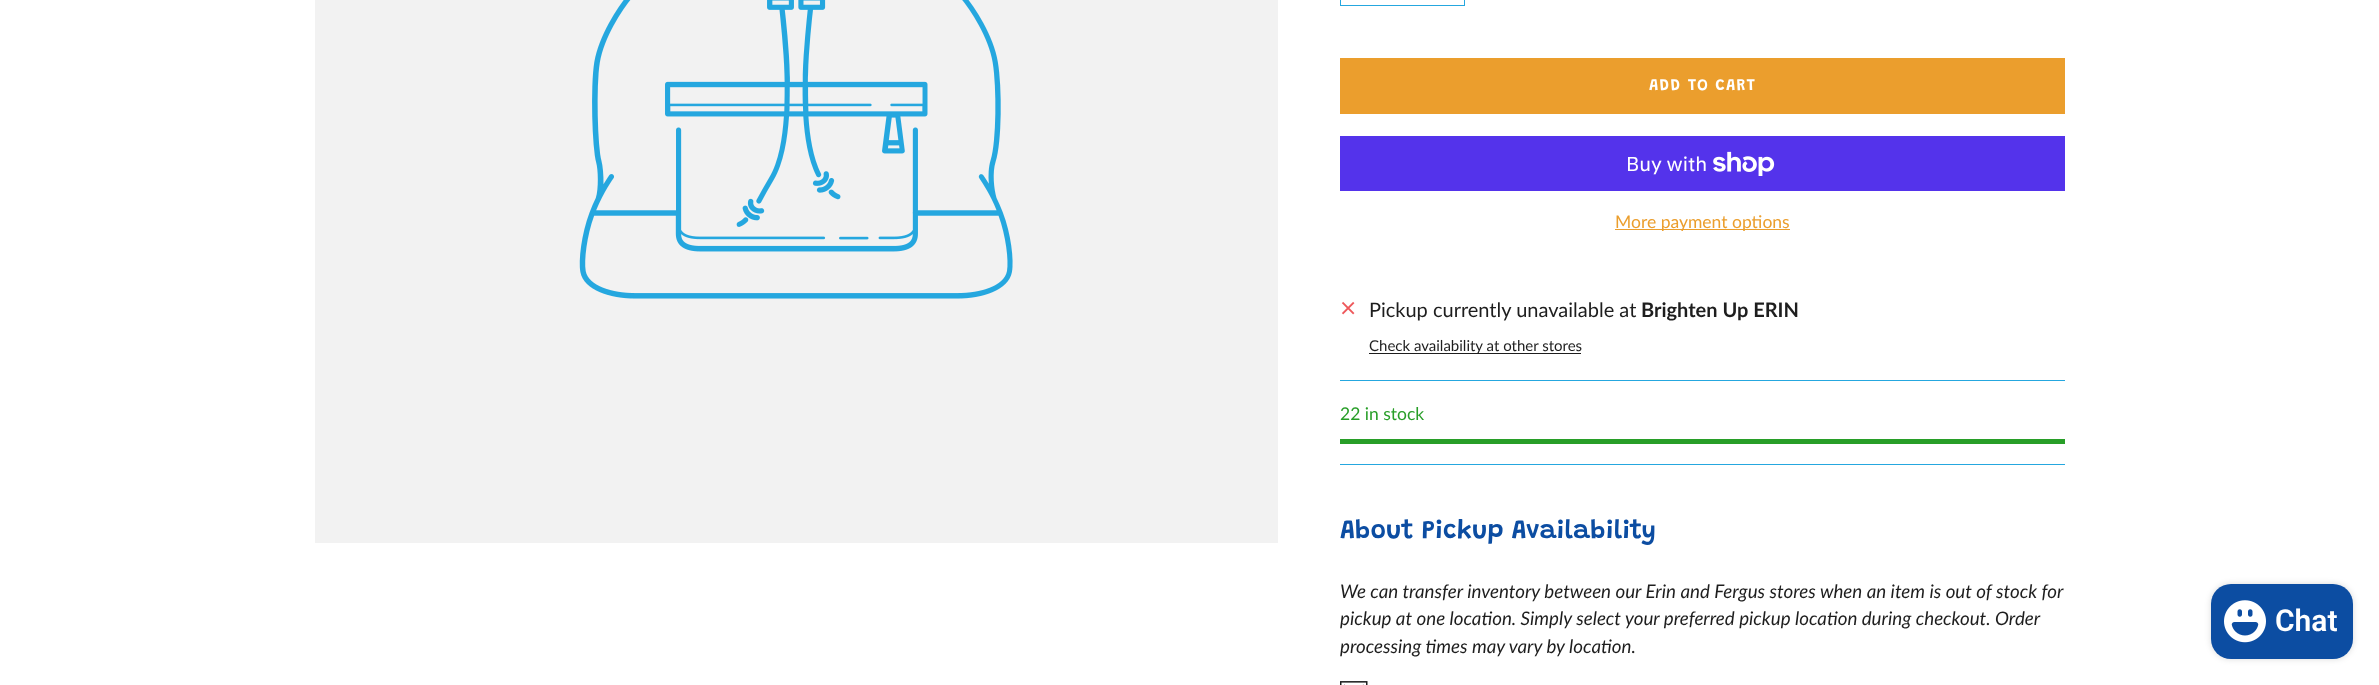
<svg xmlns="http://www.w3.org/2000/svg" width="2379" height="685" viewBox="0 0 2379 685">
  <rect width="100%" height="100%" fill="rgb(255,255,255)"/>
  <rect x="315" y="0" width="963" height="543" fill="rgb(242,242,242)"/>
  <image x="579" y="0" width="434" height="299" href="pic1.png"/>
  <rect x="1340" y="380" width="725" height="1" fill="rgb(37,167,223)"/>
  <rect x="1340.5" y="-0.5" width="124" height="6" fill="none" stroke="rgb(37,167,223)"/>
  <rect x="1340" y="58" width="725" height="56" fill="rgb(235,158,45)"/>
  <text x="1649" y="90" font-family="Grandstander" font-size="16.25" font-weight="600" letter-spacing="1.25" fill="rgb(255,255,255)">ADD TO CART</text>
  <rect x="1340" y="136" width="725" height="55" fill="rgb(84,51,235)"/>
  <text x="1626" y="171" font-family="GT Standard" font-size="20" fill="rgb(255,255,255)">Buy with</text>
  <image x="1713" y="151" width="62" height="25" href="pic2.png"/>
  <rect x="1615" y="229" width="175" height="1" fill="rgb(235,158,45)"/>
  <text x="1615" y="228" font-family="Lato" font-size="17.5" fill="rgb(235,158,45)">More payment options</text>
  <image x="1341" y="301" width="14" height="14" href="pic3.png"/>
  <text x="1369" y="317" font-family="Lato" font-size="20" fill="rgb(30,30,30)">Pickup currently unavailable at</text>
  <text x="1641" y="317" font-family="Lato" font-size="20" font-weight="bold" fill="rgb(30,30,30)">Brighten Up ERIN</text>
  <rect x="1369" y="353" width="212" height="1" fill="rgb(30,30,30)"/>
  <text x="1369" y="351" font-family="Lato" font-size="15" fill="rgb(30,30,30)">Check availability at other stores</text>
  <rect x="1340" y="464" width="725" height="1" fill="rgb(37,167,223)"/>
  <text x="1340" y="420" font-family="Lato" font-size="17.5" fill="rgb(40,158,40)">22 in stock</text>
  <rect x="1340" y="439" width="725" height="5" fill="rgb(40,158,40)"/>
  <text x="1340" y="538" font-family="Grandstander" font-size="26.25" font-weight="600" fill="rgb(12,77,162)">About Pickup Availability</text>
  <g font-family="Lato" font-size="18.75" font-style="italic" fill="rgb(30,30,30)">
    <text>
      <tspan x="1340" y="598">We can transfer inventory between our Erin and Fergus stores when an item is out of stock for</tspan>
      <tspan x="1340" y="625">pickup at one location. Simply select your preferred pickup location during checkout. Order</tspan>
      <tspan x="1340" y="653">processing times may vary by location.</tspan>
    </text>
  </g>
  <image x="1340" y="681" width="28" height="4" href="pic4.png"/>
  <rect x="2211" y="584" width="142" height="75" rx="20" fill="rgba(0,0,0,0.15)" filter="blur(3px)"/>
  <rect x="2211" y="584" width="142" height="75" rx="20" fill="rgb(12,77,162)"/>
  <image x="2224" y="600" width="42" height="43" href="pic5.png"/>
  <text x="2275" y="631" font-family="Roboto" font-size="30" font-weight="600" fill="rgb(255,255,255)">Chat</text>
</svg>
